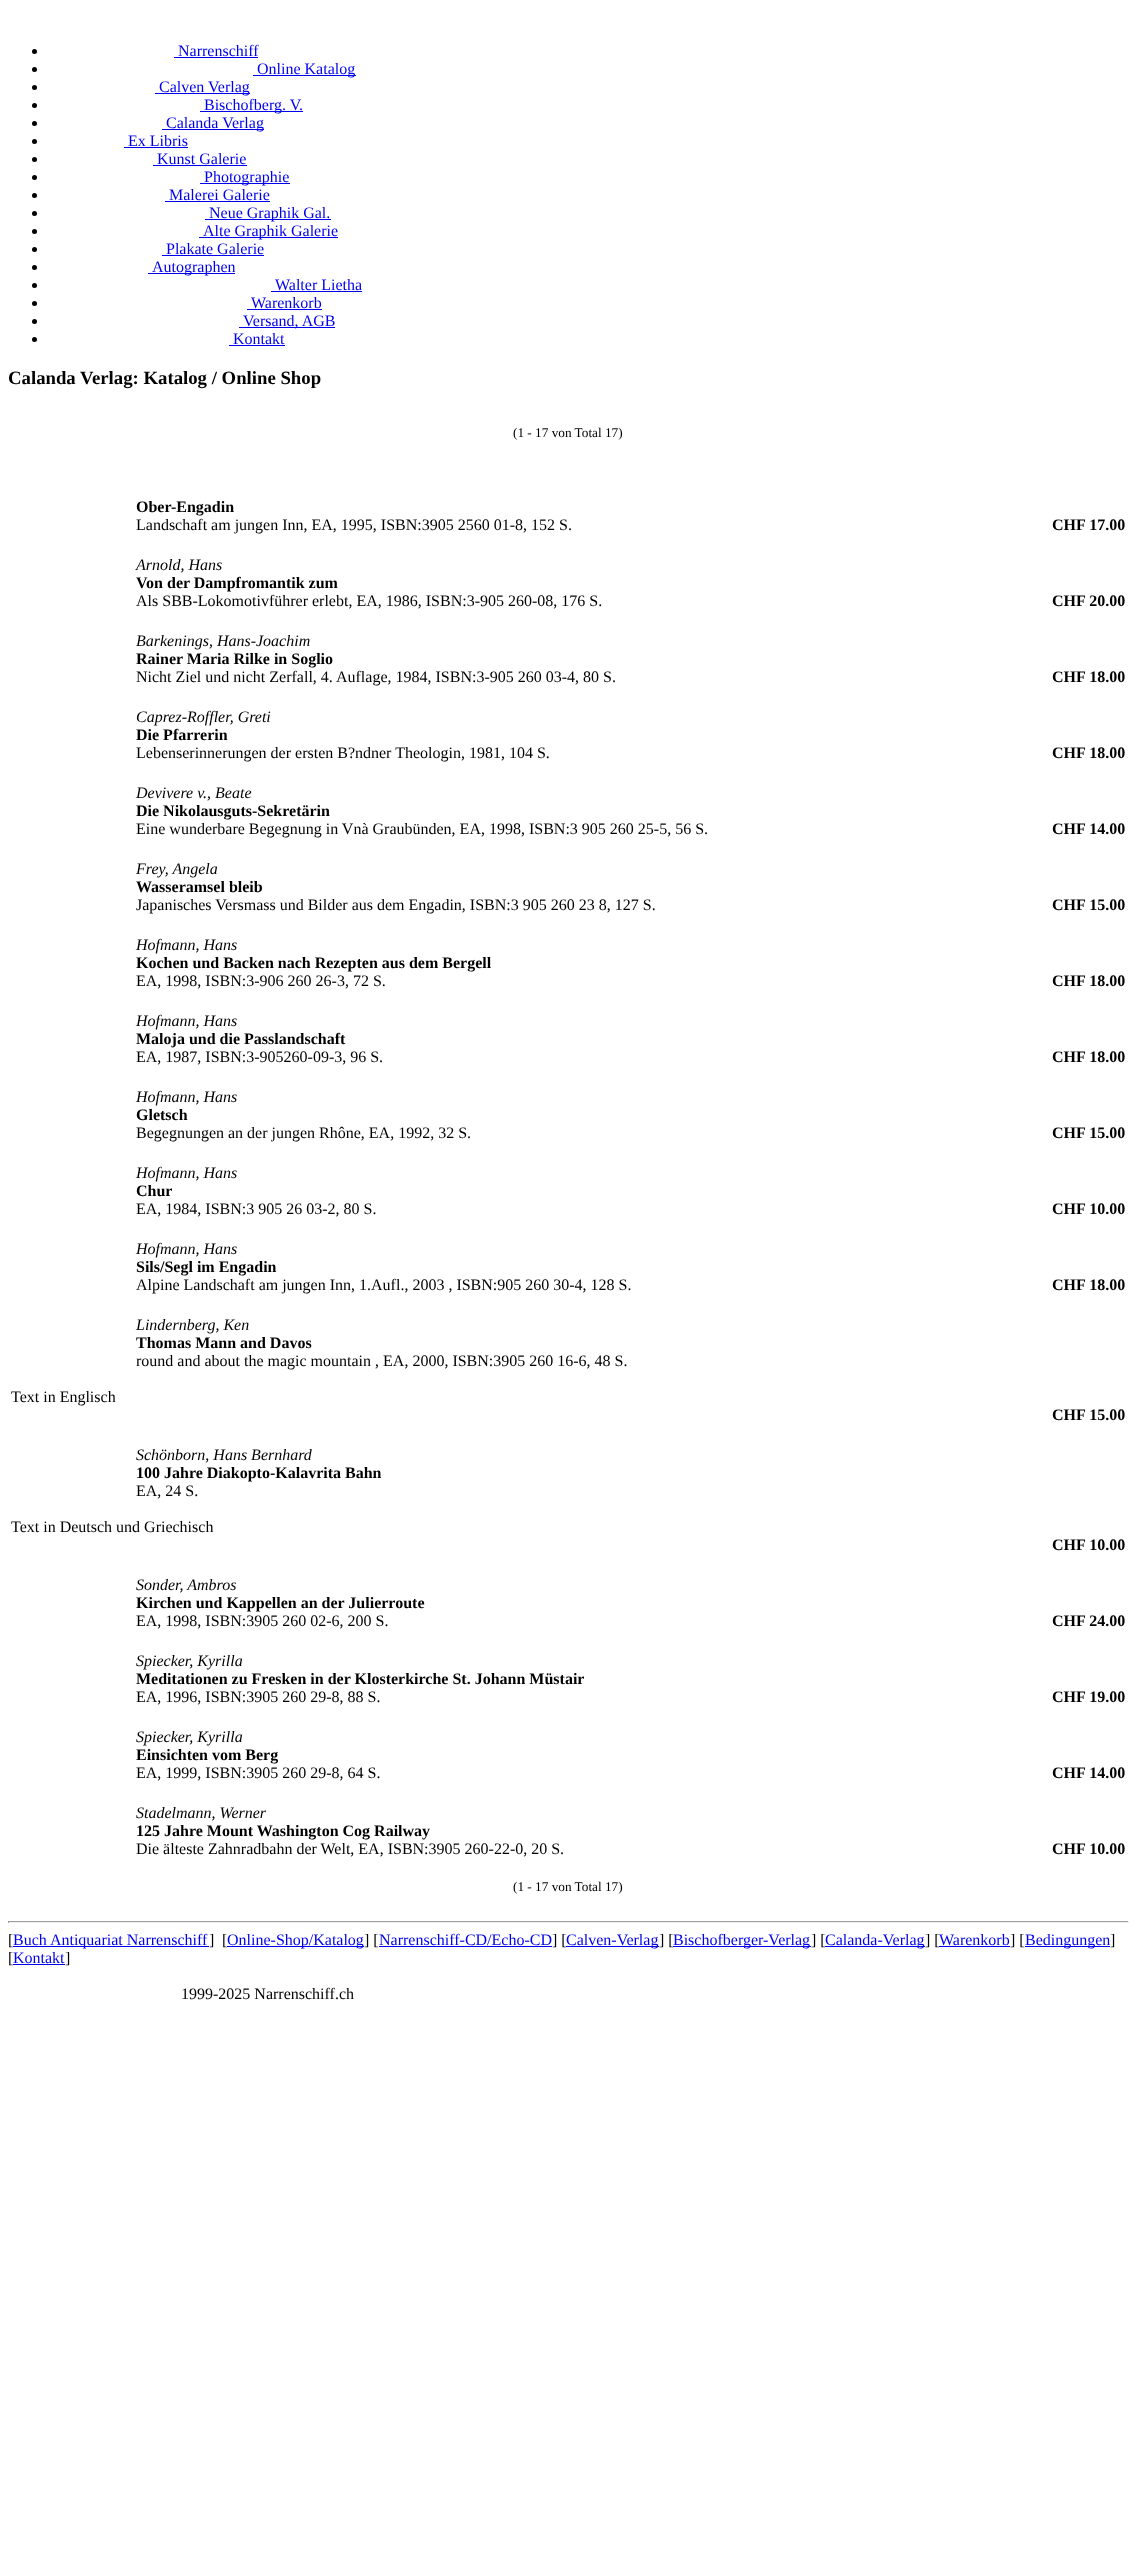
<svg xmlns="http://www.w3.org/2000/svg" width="1137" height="2557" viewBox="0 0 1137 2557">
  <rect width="100%" height="100%" fill="rgb(255,255,255)"/>
  <circle cx="34.5" cy="51.5" r="2.5" fill="rgb(0,0,0)"/>
  <text x="178" y="56" font-family="Liberation Serif" font-size="16" fill="rgb(0,0,238)">Narrenschiff</text>
  <rect x="174" y="57" width="84" height="1" fill="rgb(0,0,238)"/>
  <circle cx="34.5" cy="69.5" r="2.5" fill="rgb(0,0,0)"/>
  <rect x="253" y="75" width="103" height="1" fill="rgb(0,0,238)"/>
  <text x="257" y="74" font-family="Liberation Serif" font-size="16" fill="rgb(0,0,238)">Online Katalog</text>
  <circle cx="34.5" cy="87.5" r="2.5" fill="rgb(0,0,0)"/>
  <rect x="155" y="93" width="95" height="1" fill="rgb(0,0,238)"/>
  <text x="159" y="92" font-family="Liberation Serif" font-size="16" fill="rgb(0,0,238)">Calven Verlag</text>
  <circle cx="34.5" cy="105.5" r="2.5" fill="rgb(0,0,0)"/>
  <rect x="200" y="111" width="103" height="1" fill="rgb(0,0,238)"/>
  <text x="204" y="110" font-family="Liberation Serif" font-size="16" fill="rgb(0,0,238)">Bischofberg. V.</text>
  <circle cx="34.5" cy="123.5" r="2.5" fill="rgb(0,0,0)"/>
  <rect x="162" y="129" width="102" height="1" fill="rgb(0,0,238)"/>
  <text x="166" y="128" font-family="Liberation Serif" font-size="16" fill="rgb(0,0,238)">Calanda Verlag</text>
  <circle cx="34.5" cy="141.5" r="2.5" fill="rgb(0,0,0)"/>
  <text x="128" y="146" font-family="Liberation Serif" font-size="16" fill="rgb(0,0,238)">Ex Libris</text>
  <rect x="124" y="147" width="64" height="1" fill="rgb(0,0,238)"/>
  <circle cx="34.5" cy="159.5" r="2.5" fill="rgb(0,0,0)"/>
  <text x="157" y="164" font-family="Liberation Serif" font-size="16" fill="rgb(0,0,238)">Kunst Galerie</text>
  <rect x="153" y="165" width="94" height="1" fill="rgb(0,0,238)"/>
  <circle cx="34.5" cy="177.5" r="2.5" fill="rgb(0,0,0)"/>
  <rect x="200" y="183" width="90" height="1" fill="rgb(0,0,238)"/>
  <text x="204" y="182" font-family="Liberation Serif" font-size="16" fill="rgb(0,0,238)">Photographie</text>
  <circle cx="34.5" cy="195.5" r="2.5" fill="rgb(0,0,0)"/>
  <text x="169" y="200" font-family="Liberation Serif" font-size="16" fill="rgb(0,0,238)">Malerei Galerie</text>
  <rect x="165" y="201" width="105" height="1" fill="rgb(0,0,238)"/>
  <circle cx="34.5" cy="213.5" r="2.5" fill="rgb(0,0,0)"/>
  <rect x="205" y="219" width="126" height="1" fill="rgb(0,0,238)"/>
  <text x="209" y="218" font-family="Liberation Serif" font-size="16" fill="rgb(0,0,238)">Neue Graphik Gal.</text>
  <circle cx="34.5" cy="231.5" r="2.5" fill="rgb(0,0,0)"/>
  <rect x="199" y="237" width="139" height="1" fill="rgb(0,0,238)"/>
  <text x="203" y="236" font-family="Liberation Serif" font-size="16" fill="rgb(0,0,238)">Alte Graphik Galerie</text>
  <circle cx="34.5" cy="249.5" r="2.5" fill="rgb(0,0,0)"/>
  <text x="166" y="254" font-family="Liberation Serif" font-size="16" fill="rgb(0,0,238)">Plakate Galerie</text>
  <rect x="162" y="255" width="102" height="1" fill="rgb(0,0,238)"/>
  <circle cx="34.5" cy="267.5" r="2.5" fill="rgb(0,0,0)"/>
  <rect x="148" y="273" width="87" height="1" fill="rgb(0,0,238)"/>
  <text x="152" y="272" font-family="Liberation Serif" font-size="16" fill="rgb(0,0,238)">Autographen</text>
  <circle cx="34.5" cy="285.5" r="2.5" fill="rgb(0,0,0)"/>
  <text x="275" y="290" font-family="Liberation Serif" font-size="16" fill="rgb(0,0,238)">Walter Lietha</text>
  <rect x="271" y="291" width="91" height="1" fill="rgb(0,0,238)"/>
  <circle cx="34.5" cy="303.5" r="2.5" fill="rgb(0,0,0)"/>
  <text x="251" y="308" font-family="Liberation Serif" font-size="16" fill="rgb(0,0,238)">Warenkorb</text>
  <rect x="247" y="309" width="75" height="1" fill="rgb(0,0,238)"/>
  <circle cx="34.5" cy="321.5" r="2.5" fill="rgb(0,0,0)"/>
  <rect x="239" y="327" width="96" height="1" fill="rgb(0,0,238)"/>
  <text x="243" y="326" font-family="Liberation Serif" font-size="16" fill="rgb(0,0,238)">Versand, AGB</text>
  <circle cx="34.5" cy="339.5" r="2.5" fill="rgb(0,0,0)"/>
  <text x="233" y="344" font-family="Liberation Serif" font-size="16" fill="rgb(0,0,238)">Kontakt</text>
  <rect x="229" y="345" width="56" height="1" fill="rgb(0,0,238)"/>
  <text x="8" y="384" font-family="Liberation Serif" font-size="18.75" font-weight="bold" fill="rgb(0,0,0)">Calanda Verlag: Katalog / Online Shop</text>
  <text x="513" y="437" font-family="Liberation Serif" font-size="13.25" fill="rgb(0,0,0)">(1 - 17 von Total 17)</text>
  <text x="136" y="512" font-family="Liberation Serif" font-size="16" font-weight="bold" fill="rgb(0,0,0)">Ober-Engadin</text>
  <text x="136" y="530" font-family="Liberation Serif" font-size="16" fill="rgb(0,0,0)">Landschaft am jungen Inn, EA, 1995, ISBN:3905 2560 01-8, 152 S.</text>
  <text x="1052" y="530" font-family="Liberation Serif" font-size="16" font-weight="bold" fill="rgb(0,0,0)">CHF 17.00</text>
  <text x="136" y="570" font-family="Liberation Serif" font-size="16" font-style="italic" fill="rgb(0,0,0)">Arnold, Hans</text>
  <text x="136" y="588" font-family="Liberation Serif" font-size="16" font-weight="bold" fill="rgb(0,0,0)">Von der Dampfromantik zum</text>
  <text x="136" y="606" font-family="Liberation Serif" font-size="16" fill="rgb(0,0,0)">Als SBB-Lokomotivführer erlebt, EA, 1986, ISBN:3-905 260-08, 176 S.</text>
  <text x="1052" y="606" font-family="Liberation Serif" font-size="16" font-weight="bold" fill="rgb(0,0,0)">CHF 20.00</text>
  <text x="136" y="646" font-family="Liberation Serif" font-size="16" font-style="italic" fill="rgb(0,0,0)">Barkenings, Hans-Joachim</text>
  <text x="136" y="664" font-family="Liberation Serif" font-size="16" font-weight="bold" fill="rgb(0,0,0)">Rainer Maria Rilke in Soglio</text>
  <text x="136" y="682" font-family="Liberation Serif" font-size="16" fill="rgb(0,0,0)">Nicht Ziel und nicht Zerfall, 4. Auflage, 1984, ISBN:3-905 260 03-4, 80 S.</text>
  <text x="1052" y="682" font-family="Liberation Serif" font-size="16" font-weight="bold" fill="rgb(0,0,0)">CHF 18.00</text>
  <text x="136" y="722" font-family="Liberation Serif" font-size="16" font-style="italic" fill="rgb(0,0,0)">Caprez-Roffler, Greti</text>
  <text x="136" y="740" font-family="Liberation Serif" font-size="16" font-weight="bold" fill="rgb(0,0,0)">Die Pfarrerin</text>
  <text x="136" y="758" font-family="Liberation Serif" font-size="16" fill="rgb(0,0,0)">Lebenserinnerungen der ersten B?ndner Theologin, 1981, 104 S.</text>
  <text x="1052" y="758" font-family="Liberation Serif" font-size="16" font-weight="bold" fill="rgb(0,0,0)">CHF 18.00</text>
  <text x="136" y="798" font-family="Liberation Serif" font-size="16" font-style="italic" fill="rgb(0,0,0)">Devivere v., Beate</text>
  <text x="136" y="816" font-family="Liberation Serif" font-size="16" font-weight="bold" fill="rgb(0,0,0)">Die Nikolausguts-Sekretärin</text>
  <text x="136" y="834" font-family="Liberation Serif" font-size="16" fill="rgb(0,0,0)">Eine wunderbare Begegnung in Vnà Graubünden, EA, 1998, ISBN:3 905 260 25-5, 56 S.</text>
  <text x="1052" y="834" font-family="Liberation Serif" font-size="16" font-weight="bold" fill="rgb(0,0,0)">CHF 14.00</text>
  <text x="136" y="874" font-family="Liberation Serif" font-size="16" font-style="italic" fill="rgb(0,0,0)">Frey, Angela</text>
  <text x="136" y="892" font-family="Liberation Serif" font-size="16" font-weight="bold" fill="rgb(0,0,0)">Wasseramsel bleib</text>
  <text x="136" y="910" font-family="Liberation Serif" font-size="16" fill="rgb(0,0,0)">Japanisches Versmass und Bilder aus dem Engadin, ISBN:3 905 260 23 8, 127 S.</text>
  <text x="1052" y="910" font-family="Liberation Serif" font-size="16" font-weight="bold" fill="rgb(0,0,0)">CHF 15.00</text>
  <text x="136" y="950" font-family="Liberation Serif" font-size="16" font-style="italic" fill="rgb(0,0,0)">Hofmann, Hans</text>
  <text x="136" y="968" font-family="Liberation Serif" font-size="16" font-weight="bold" fill="rgb(0,0,0)">Kochen und Backen nach Rezepten aus dem Bergell</text>
  <text x="136" y="986" font-family="Liberation Serif" font-size="16" fill="rgb(0,0,0)">EA, 1998, ISBN:3-906 260 26-3, 72 S.</text>
  <text x="1052" y="986" font-family="Liberation Serif" font-size="16" font-weight="bold" fill="rgb(0,0,0)">CHF 18.00</text>
  <text x="136" y="1026" font-family="Liberation Serif" font-size="16" font-style="italic" fill="rgb(0,0,0)">Hofmann, Hans</text>
  <text x="136" y="1044" font-family="Liberation Serif" font-size="16" font-weight="bold" fill="rgb(0,0,0)">Maloja und die Passlandschaft</text>
  <text x="136" y="1062" font-family="Liberation Serif" font-size="16" fill="rgb(0,0,0)">EA, 1987, ISBN:3-905260-09-3, 96 S.</text>
  <text x="1052" y="1062" font-family="Liberation Serif" font-size="16" font-weight="bold" fill="rgb(0,0,0)">CHF 18.00</text>
  <text x="136" y="1102" font-family="Liberation Serif" font-size="16" font-style="italic" fill="rgb(0,0,0)">Hofmann, Hans</text>
  <text x="136" y="1120" font-family="Liberation Serif" font-size="16" font-weight="bold" fill="rgb(0,0,0)">Gletsch</text>
  <text x="136" y="1138" font-family="Liberation Serif" font-size="16" fill="rgb(0,0,0)">Begegnungen an der jungen Rhône, EA, 1992, 32 S.</text>
  <text x="1052" y="1138" font-family="Liberation Serif" font-size="16" font-weight="bold" fill="rgb(0,0,0)">CHF 15.00</text>
  <text x="136" y="1178" font-family="Liberation Serif" font-size="16" font-style="italic" fill="rgb(0,0,0)">Hofmann, Hans</text>
  <text x="136" y="1196" font-family="Liberation Serif" font-size="16" font-weight="bold" fill="rgb(0,0,0)">Chur</text>
  <text x="136" y="1214" font-family="Liberation Serif" font-size="16" fill="rgb(0,0,0)">EA, 1984, ISBN:3 905 26 03-2, 80 S.</text>
  <text x="1052" y="1214" font-family="Liberation Serif" font-size="16" font-weight="bold" fill="rgb(0,0,0)">CHF 10.00</text>
  <text x="136" y="1254" font-family="Liberation Serif" font-size="16" font-style="italic" fill="rgb(0,0,0)">Hofmann, Hans</text>
  <text x="136" y="1272" font-family="Liberation Serif" font-size="16" font-weight="bold" fill="rgb(0,0,0)">Sils/Segl im Engadin</text>
  <text x="136" y="1290" font-family="Liberation Serif" font-size="16" fill="rgb(0,0,0)">Alpine Landschaft am jungen Inn, 1.Aufl., 2003 , ISBN:905 260 30-4, 128 S.</text>
  <text x="1052" y="1290" font-family="Liberation Serif" font-size="16" font-weight="bold" fill="rgb(0,0,0)">CHF 18.00</text>
  <text x="136" y="1330" font-family="Liberation Serif" font-size="16" font-style="italic" fill="rgb(0,0,0)">Lindernberg, Ken</text>
  <text x="136" y="1348" font-family="Liberation Serif" font-size="16" font-weight="bold" fill="rgb(0,0,0)">Thomas Mann and Davos</text>
  <g font-family="Liberation Serif" font-size="16" fill="rgb(0,0,0)">
    <text x="136" y="1366">round and about the magic mountain , EA, 2000, ISBN:3905 260 16-6, 48 S.</text>
    <text x="11" y="1402">Text in Englisch</text>
  </g>
  <text x="1052" y="1420" font-family="Liberation Serif" font-size="16" font-weight="bold" fill="rgb(0,0,0)">CHF 15.00</text>
  <text x="136" y="1460" font-family="Liberation Serif" font-size="16" font-style="italic" fill="rgb(0,0,0)">Schönborn, Hans Bernhard</text>
  <text x="136" y="1478" font-family="Liberation Serif" font-size="16" font-weight="bold" fill="rgb(0,0,0)">100 Jahre Diakopto-Kalavrita Bahn</text>
  <g font-family="Liberation Serif" font-size="16" fill="rgb(0,0,0)">
    <text x="136" y="1496">EA, 24 S.</text>
    <text x="11" y="1532">Text in Deutsch und Griechisch</text>
  </g>
  <text x="1052" y="1550" font-family="Liberation Serif" font-size="16" font-weight="bold" fill="rgb(0,0,0)">CHF 10.00</text>
  <text x="136" y="1590" font-family="Liberation Serif" font-size="16" font-style="italic" fill="rgb(0,0,0)">Sonder, Ambros</text>
  <text x="136" y="1608" font-family="Liberation Serif" font-size="16" font-weight="bold" fill="rgb(0,0,0)">Kirchen und Kappellen an der Julierroute</text>
  <text x="136" y="1626" font-family="Liberation Serif" font-size="16" fill="rgb(0,0,0)">EA, 1998, ISBN:3905 260 02-6, 200 S.</text>
  <text x="1052" y="1626" font-family="Liberation Serif" font-size="16" font-weight="bold" fill="rgb(0,0,0)">CHF 24.00</text>
  <text x="136" y="1666" font-family="Liberation Serif" font-size="16" font-style="italic" fill="rgb(0,0,0)">Spiecker, Kyrilla</text>
  <text x="136" y="1684" font-family="Liberation Serif" font-size="16" font-weight="bold" fill="rgb(0,0,0)">Meditationen zu Fresken in der Klosterkirche St. Johann Müstair</text>
  <text x="136" y="1702" font-family="Liberation Serif" font-size="16" fill="rgb(0,0,0)">EA, 1996, ISBN:3905 260 29-8, 88 S.</text>
  <text x="1052" y="1702" font-family="Liberation Serif" font-size="16" font-weight="bold" fill="rgb(0,0,0)">CHF 19.00</text>
  <text x="136" y="1742" font-family="Liberation Serif" font-size="16" font-style="italic" fill="rgb(0,0,0)">Spiecker, Kyrilla</text>
  <text x="136" y="1760" font-family="Liberation Serif" font-size="16" font-weight="bold" fill="rgb(0,0,0)">Einsichten vom Berg</text>
  <text x="136" y="1778" font-family="Liberation Serif" font-size="16" fill="rgb(0,0,0)">EA, 1999, ISBN:3905 260 29-8, 64 S.</text>
  <text x="1052" y="1778" font-family="Liberation Serif" font-size="16" font-weight="bold" fill="rgb(0,0,0)">CHF 14.00</text>
  <text x="136" y="1818" font-family="Liberation Serif" font-size="16" font-style="italic" fill="rgb(0,0,0)">Stadelmann, Werner</text>
  <text x="136" y="1836" font-family="Liberation Serif" font-size="16" font-weight="bold" fill="rgb(0,0,0)">125 Jahre Mount Washington Cog Railway</text>
  <text x="136" y="1854" font-family="Liberation Serif" font-size="16" fill="rgb(0,0,0)">Die älteste Zahnradbahn der Welt, EA, ISBN:3905 260-22-0, 20 S.</text>
  <text x="1052" y="1854" font-family="Liberation Serif" font-size="16" font-weight="bold" fill="rgb(0,0,0)">CHF 10.00</text>
  <text x="513" y="1891" font-family="Liberation Serif" font-size="13.25" fill="rgb(0,0,0)">(1 - 17 von Total 17)</text>
  <rect x="8" y="1921" width="1121" height="1" fill="rgb(159,159,159)"/>
  <rect x="1128" y="1921" width="1" height="2" fill="rgb(238,238,238)"/>
  <rect x="8" y="1922" width="1121" height="1" fill="rgb(238,238,238)"/>
  <rect x="8" y="1921" width="1" height="2" fill="rgb(159,159,159)"/>
  <text x="8" y="1945" font-family="Liberation Serif" font-size="16" fill="rgb(0,0,0)">[</text>
  <rect x="13" y="1946" width="196" height="1" fill="rgb(0,0,238)"/>
  <text x="13" y="1945" font-family="Liberation Serif" font-size="16" fill="rgb(0,0,238)">Buch Antiquariat Narrenschiff</text>
  <g font-family="Liberation Serif" font-size="16" fill="rgb(0,0,0)">
    <text x="209" y="1945">]</text>
    <text x="222" y="1945">[</text>
  </g>
  <rect x="227" y="1946" width="137" height="1" fill="rgb(0,0,238)"/>
  <text x="227" y="1945" font-family="Liberation Serif" font-size="16" fill="rgb(0,0,238)">Online-Shop/Katalog</text>
  <text x="364" y="1945" font-family="Liberation Serif" font-size="16" fill="rgb(0,0,0)">] [</text>
  <text x="379" y="1945" font-family="Liberation Serif" font-size="16" fill="rgb(0,0,238)">Narrenschiff-CD/Echo-CD</text>
  <text x="552" y="1945" font-family="Liberation Serif" font-size="16" fill="rgb(0,0,0)">] [</text>
  <rect x="379" y="1946" width="173" height="1" fill="rgb(0,0,238)"/>
  <rect x="566" y="1946" width="93" height="1" fill="rgb(0,0,238)"/>
  <text x="566" y="1945" font-family="Liberation Serif" font-size="16" fill="rgb(0,0,238)">Calven-Verlag</text>
  <text x="659" y="1945" font-family="Liberation Serif" font-size="16" fill="rgb(0,0,0)">] [</text>
  <rect x="673" y="1946" width="138" height="1" fill="rgb(0,0,238)"/>
  <text x="673" y="1945" font-family="Liberation Serif" font-size="16" fill="rgb(0,0,238)">Bischofberger-Verlag</text>
  <text x="811" y="1945" font-family="Liberation Serif" font-size="16" fill="rgb(0,0,0)">] [</text>
  <rect x="825" y="1946" width="100" height="1" fill="rgb(0,0,238)"/>
  <text x="825" y="1945" font-family="Liberation Serif" font-size="16" fill="rgb(0,0,238)">Calanda-Verlag</text>
  <text x="925" y="1945" font-family="Liberation Serif" font-size="16" fill="rgb(0,0,0)">] [</text>
  <text x="939" y="1945" font-family="Liberation Serif" font-size="16" fill="rgb(0,0,238)">Warenkorb</text>
  <text x="1010" y="1945" font-family="Liberation Serif" font-size="16" fill="rgb(0,0,0)">] [</text>
  <rect x="939" y="1946" width="71" height="1" fill="rgb(0,0,238)"/>
  <rect x="1025" y="1946" width="85" height="1" fill="rgb(0,0,238)"/>
  <text x="1025" y="1945" font-family="Liberation Serif" font-size="16" fill="rgb(0,0,238)">Bedingungen</text>
  <g font-family="Liberation Serif" font-size="16" fill="rgb(0,0,0)">
    <text x="1110" y="1945">]</text>
    <text x="8" y="1963">[</text>
  </g>
  <rect x="13" y="1964" width="52" height="1" fill="rgb(0,0,238)"/>
  <text x="13" y="1963" font-family="Liberation Serif" font-size="16" fill="rgb(0,0,238)">Kontakt</text>
  <g font-family="Liberation Serif" font-size="16" fill="rgb(0,0,0)">
    <text x="65" y="1963">]</text>
    <text x="181" y="1999">1999-2025 Narrenschiff.ch</text>
  </g>
</svg>
